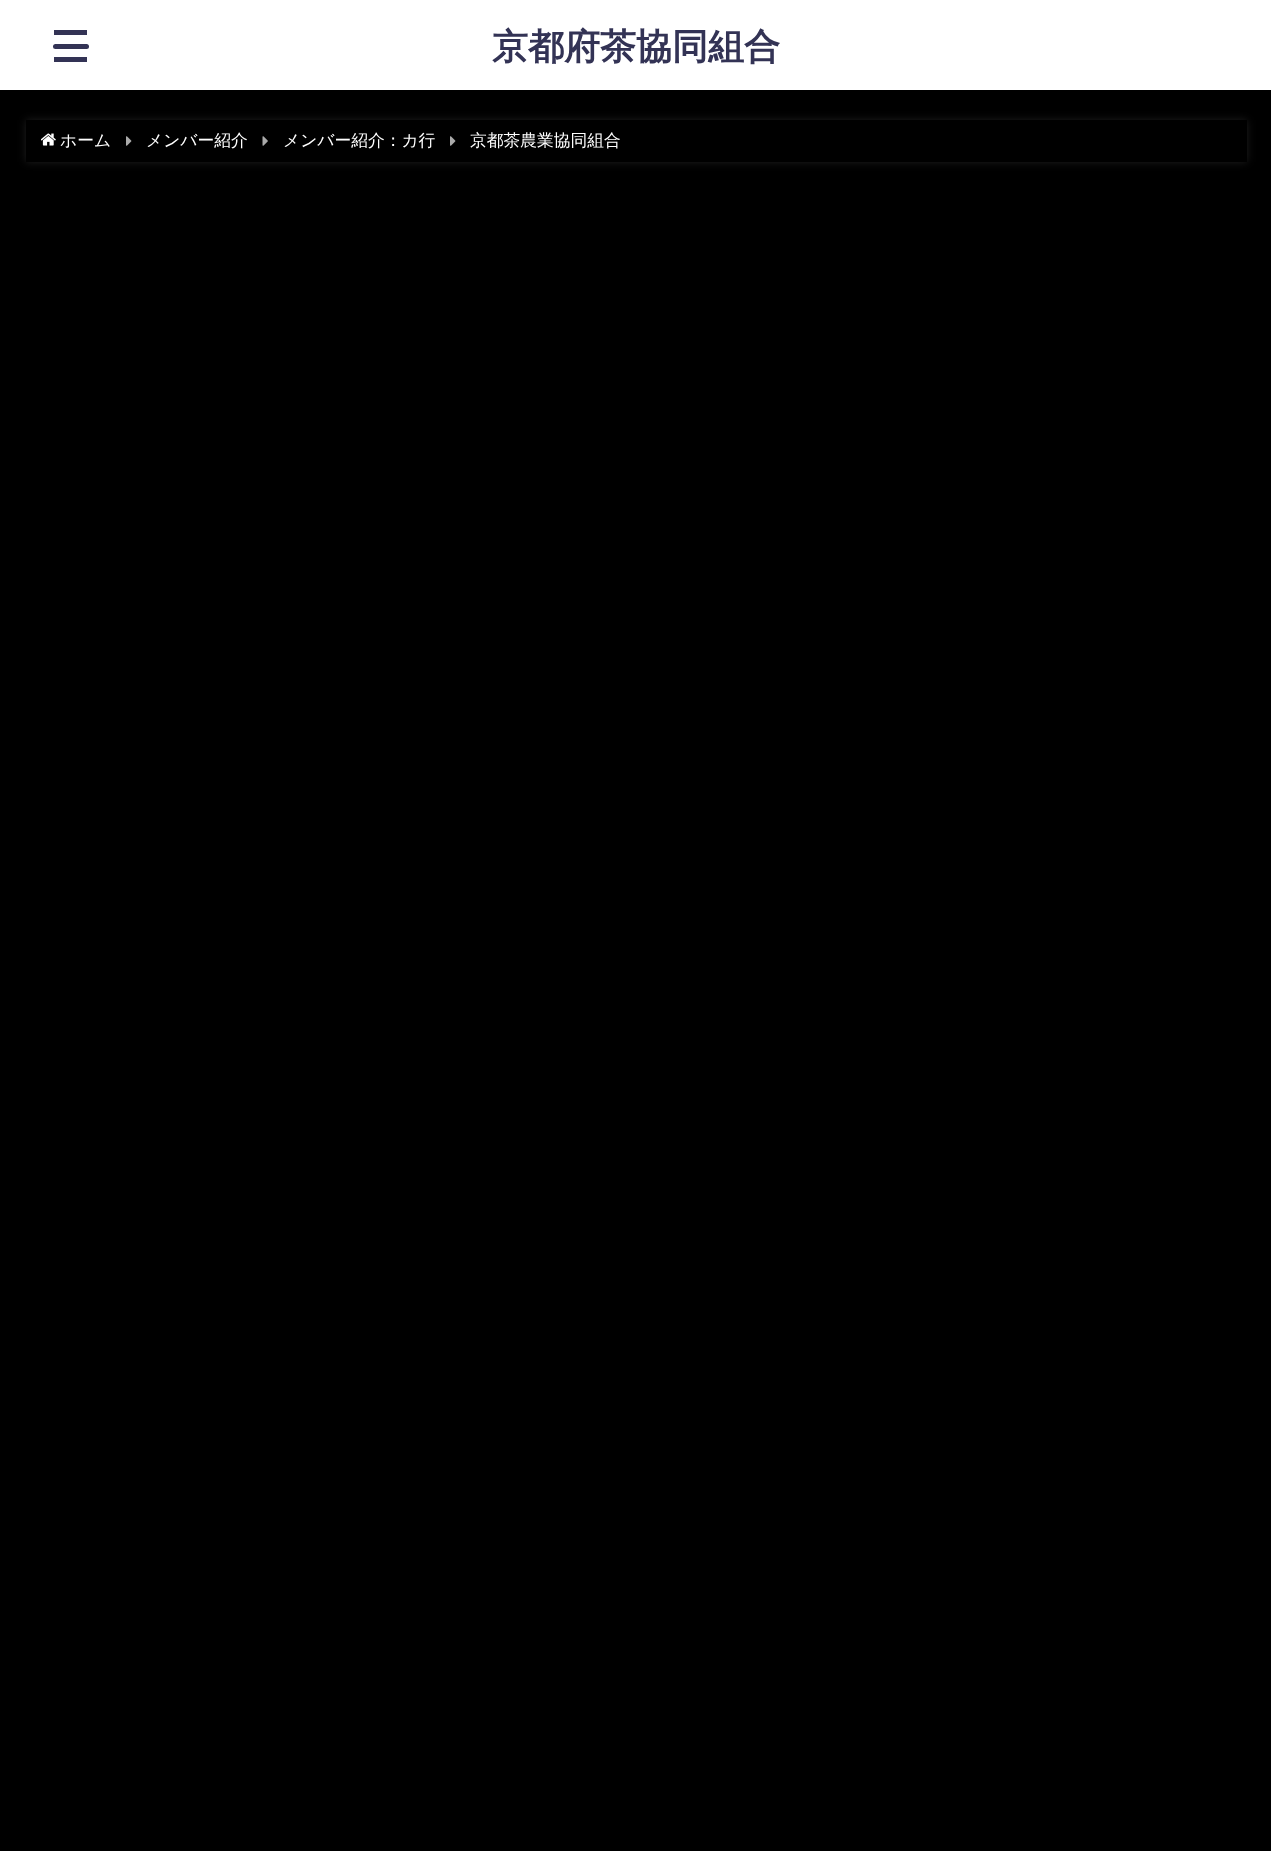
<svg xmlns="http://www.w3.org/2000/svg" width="1271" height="1851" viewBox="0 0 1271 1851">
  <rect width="100%" height="100%" fill="rgb(0,0,0)"/>
  <rect x="0" y="0" width="1271" height="90" fill="rgb(255,255,255)"/>
  <rect x="54" y="30" width="33" height="5" fill="rgb(51,51,85)"/>
  <rect x="53" y="44" width="36" height="5" rx="2.5" fill="rgb(51,51,85)"/>
  <rect x="54" y="57" width="33" height="5" fill="rgb(51,51,85)"/>
  <text x="492" y="59" font-family="WenQuanYi Zen Hei" font-size="36" font-weight="bold" fill="rgb(51,51,85)">京都府茶協同組合</text>
  <rect x="26" y="120" width="1221" height="42" fill="rgba(150,150,150,0.2)" filter="blur(4px)"/>
  <rect x="26" y="120" width="1221" height="42" fill="rgb(0,0,0)"/>
  <image x="41" y="133" width="15" height="13" href="pic1.png"/>
  <text x="60" y="146" font-family="WenQuanYi Zen Hei" font-size="16.75" font-weight="500" fill="rgb(255,255,255)">ホーム</text>
  <image x="126" y="136" width="6" height="10" href="pic2.png"/>
  <text x="146" y="146" font-family="WenQuanYi Zen Hei" font-size="16.75" font-weight="500" fill="rgb(255,255,255)">メンバー紹介</text>
  <image x="262" y="136" width="6" height="10" href="pic3.png"/>
  <text x="283" y="146" font-family="WenQuanYi Zen Hei" font-size="16.75" font-weight="500" fill="rgb(255,255,255)">メンバー紹介：カ行</text>
  <image x="450" y="136" width="6" height="10" href="pic2.png"/>
  <text x="470" y="146" font-family="WenQuanYi Zen Hei" font-size="16.75" font-weight="500" fill="rgb(255,255,255)">京都茶農業協同組合</text>
</svg>
